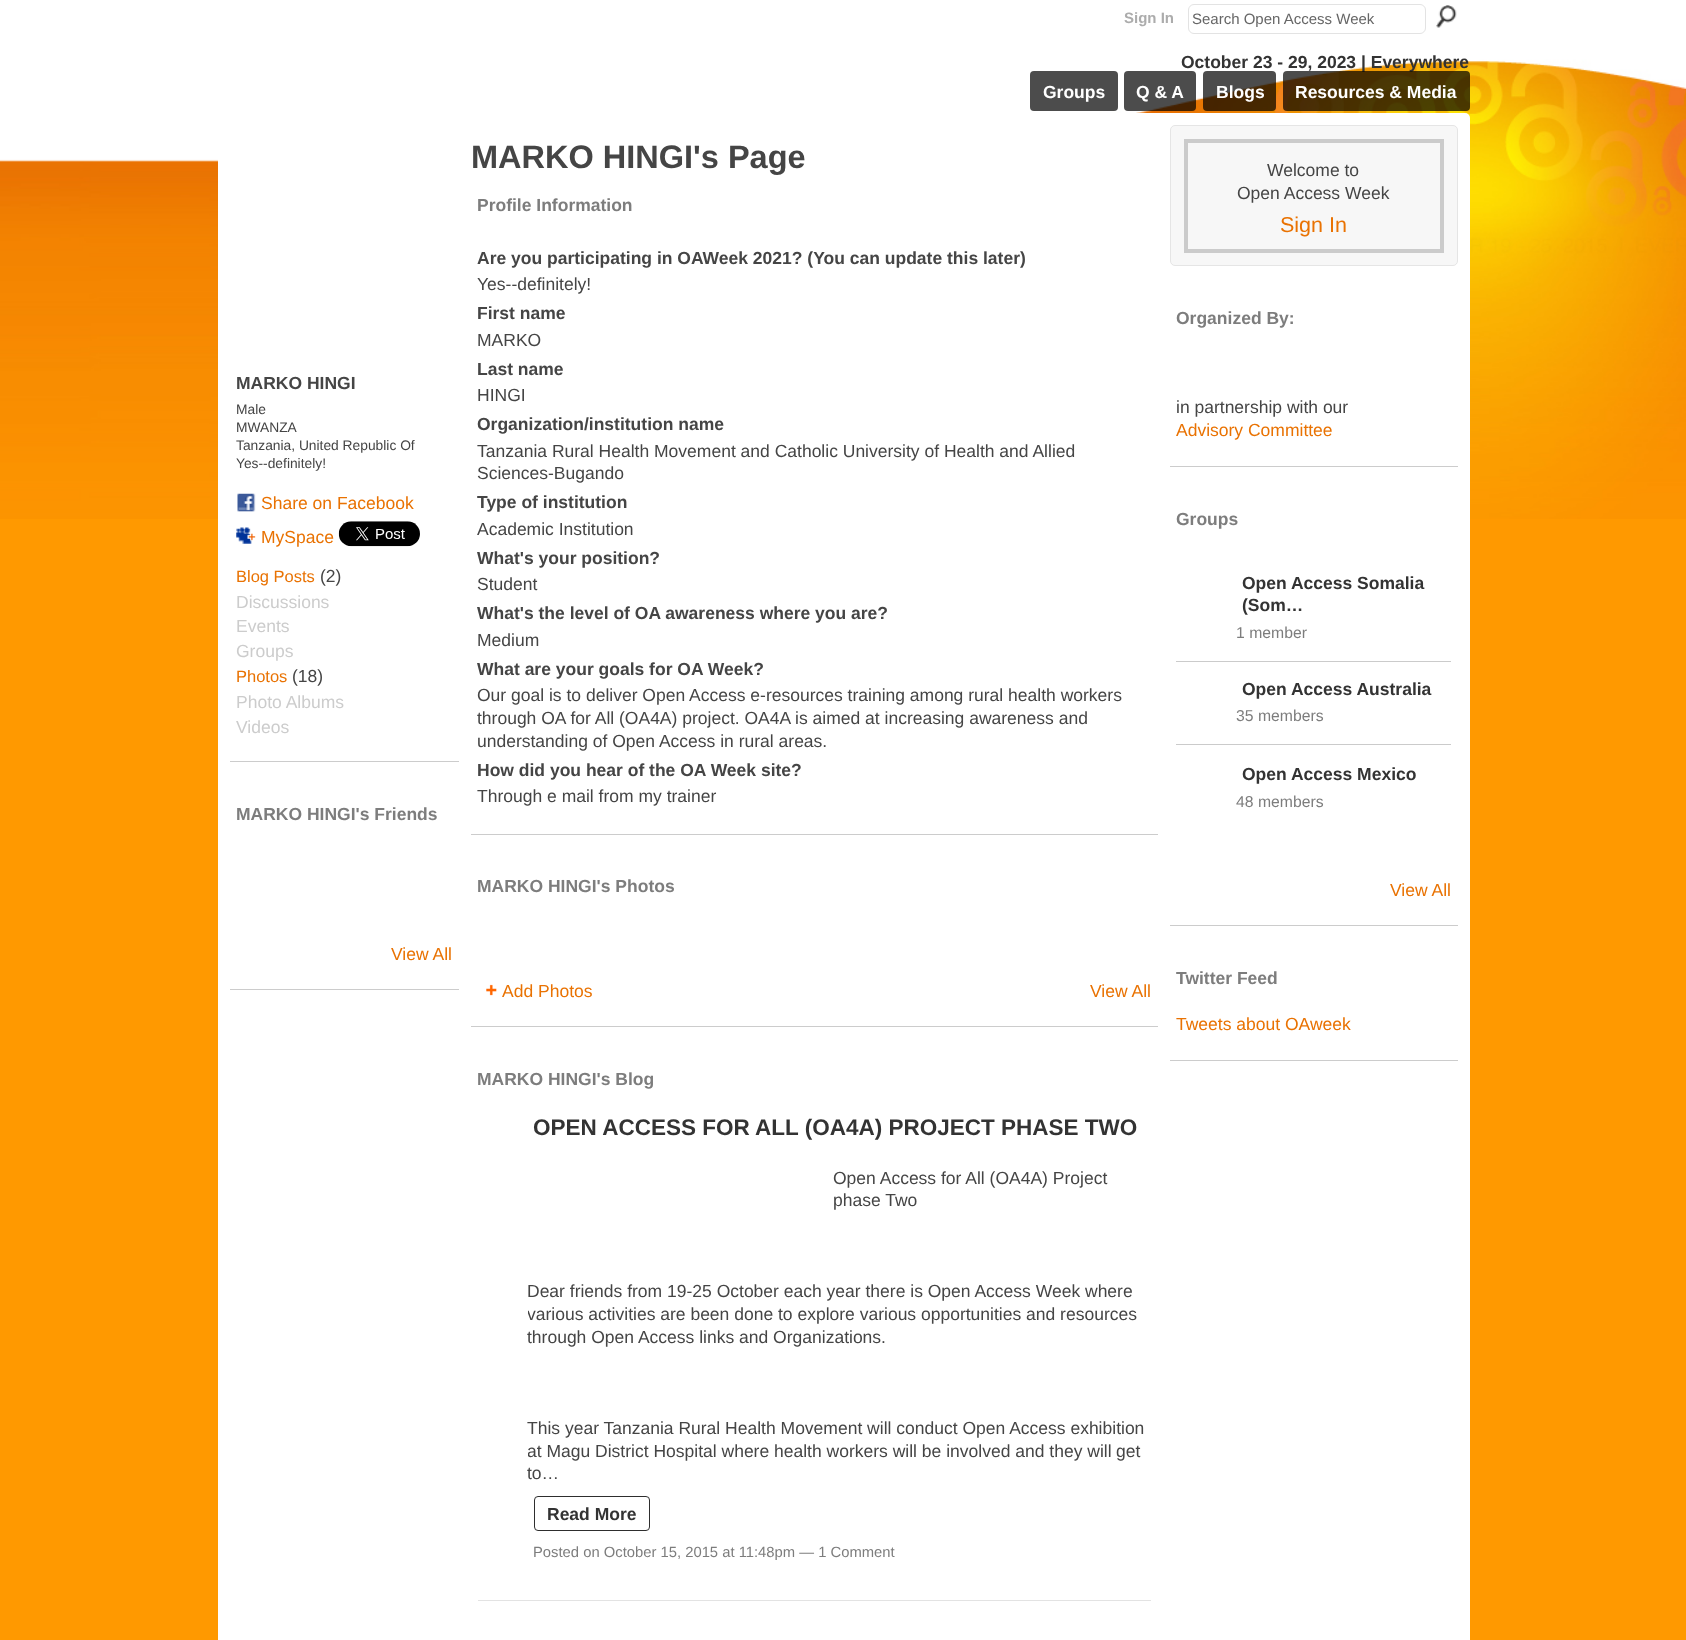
<svg xmlns="http://www.w3.org/2000/svg" width="1686" height="1640" viewBox="0 0 1686 1640">
  <defs>
    <clipPath id="clip1"><rect x="528" y="1160" width="623" height="371"/></clipPath>
  </defs>
  <rect width="100%" height="100%" fill="rgb(255,153,0)"/>
  <image x="0" y="0" width="1686" height="519" href="pic1.png"/>
  <text x="1124" y="23" font-family="Liberation Sans" font-size="15" font-weight="bold" fill="rgb(172,172,172)">Sign In</text>
  <rect x="1188.5" y="4.5" width="237" height="29" rx="5.5" fill="none" stroke="rgb(227,227,227)"/>
  <text x="1192" y="24" font-family="Liberation Sans" font-size="15" fill="rgb(102,102,102)">Search Open Access Week</text>
  <image x="1436" y="5" width="21" height="23" href="pic2.png"/>
  <text x="1181" y="68" font-family="Liberation Sans" font-size="17.5" font-weight="bold" fill="rgb(51,51,51)">October 23 - 29, 2023 | Everywhere</text>
  <rect x="1030" y="71" width="88" height="40" rx="4" fill="rgb(76,76,76)"/>
  <text x="1043" y="98" font-family="Liberation Sans" font-size="17.5" font-weight="bold" fill="rgb(255,255,255)">Groups</text>
  <rect x="1124" y="71" width="72" height="40" rx="4" fill="rgba(0,0,0,0.7)"/>
  <text x="1136" y="98" font-family="Liberation Sans" font-size="17.5" font-weight="bold" fill="rgb(255,255,255)">Q &amp; A</text>
  <rect x="1203" y="71" width="73" height="40" rx="4" fill="rgba(0,0,0,0.7)"/>
  <text x="1216" y="98" font-family="Liberation Sans" font-size="17.5" font-weight="bold" fill="rgb(255,255,255)">Blogs</text>
  <rect x="1283" y="71" width="187" height="40" rx="4" fill="rgba(0,0,0,0.7)"/>
  <text x="1295" y="98" font-family="Liberation Sans" font-size="17.5" font-weight="bold" fill="rgb(255,255,255)">Resources &amp; Media</text>
  <rect x="218" y="113" width="1252" height="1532" rx="5" fill="rgb(255,255,255)"/>
  <rect x="230" y="761" width="229" height="1" fill="rgb(204,204,204)"/>
  <text x="236" y="389" font-family="Liberation Sans" font-size="17.5" font-weight="bold" fill="rgb(69,69,69)">MARKO HINGI</text>
  <g font-family="Liberation Sans" font-size="13.8" fill="rgb(69,69,69)">
    <text>
      <tspan x="236" y="414">Male</tspan>
      <tspan x="236" y="432">MWANZA</tspan>
      <tspan x="236" y="450">Tanzania, United Republic Of</tspan>
      <tspan x="236" y="468">Yes--definitely!</tspan>
    </text>
  </g>
  <image x="237" y="493" width="19" height="19" href="pic3.png"/>
  <text x="261" y="509" font-family="Liberation Sans" font-size="17.5" fill="rgb(233,114,2)">Share on Facebook</text>
  <image x="236" y="527" width="20" height="17" href="pic4.png"/>
  <text x="261" y="543" font-family="Liberation Sans" font-size="17.5" fill="rgb(233,114,2)">MySpace</text>
  <image x="338" y="521" width="82" height="26" href="pic5.png"/>
  <text x="236" y="582" font-family="Liberation Sans" font-size="16.5" fill="rgb(233,114,2)">Blog Posts</text>
  <text x="320" y="582" font-family="Liberation Sans" font-size="17.5" fill="rgb(69,69,69)">(2)</text>
  <g font-family="Liberation Sans" font-size="17.5" fill="rgb(204,204,204)">
    <text>
      <tspan x="236" y="608">Discussions</tspan>
      <tspan x="236" y="632">Events</tspan>
      <tspan x="236" y="657">Groups</tspan>
    </text>
  </g>
  <text x="236" y="682" font-family="Liberation Sans" font-size="16.5" fill="rgb(233,114,2)">Photos</text>
  <text x="292" y="682" font-family="Liberation Sans" font-size="17.5" fill="rgb(69,69,69)">(18)</text>
  <g font-family="Liberation Sans" font-size="17.5" fill="rgb(204,204,204)">
    <text>
      <tspan x="236" y="708">Photo Albums</tspan>
      <tspan x="236" y="733">Videos</tspan>
    </text>
  </g>
  <rect x="230" y="989" width="229" height="1" fill="rgb(204,204,204)"/>
  <text x="236" y="820" font-family="Liberation Sans" font-size="17.5" font-weight="bold" fill="rgb(125,125,125)">MARKO HINGI's Friends</text>
  <text x="391" y="960" font-family="Liberation Sans" font-size="17.5" fill="rgb(233,114,2)">View All</text>
  <text x="471" y="168" font-family="Liberation Sans" font-size="32.5" font-weight="bold" fill="rgb(69,69,69)">MARKO HINGI's Page</text>
  <rect x="471" y="834" width="687" height="1" fill="rgb(204,204,204)"/>
  <text x="477" y="211" font-family="Liberation Sans" font-size="17.5" font-weight="bold" fill="rgb(125,125,125)">Profile Information</text>
  <text x="477" y="264" font-family="Liberation Sans" font-size="17.5" font-weight="bold" fill="rgb(69,69,69)">Are you participating in OAWeek 2021? (You can update this later)</text>
  <text x="477" y="290" font-family="Liberation Sans" font-size="17.5" fill="rgb(69,69,69)">Yes--definitely!</text>
  <text x="477" y="319" font-family="Liberation Sans" font-size="17.5" font-weight="bold" fill="rgb(69,69,69)">First name</text>
  <text x="477" y="346" font-family="Liberation Sans" font-size="17.5" fill="rgb(69,69,69)">MARKO</text>
  <text x="477" y="375" font-family="Liberation Sans" font-size="17.5" font-weight="bold" fill="rgb(69,69,69)">Last name</text>
  <text x="477" y="401" font-family="Liberation Sans" font-size="17.5" fill="rgb(69,69,69)">HINGI</text>
  <text x="477" y="430" font-family="Liberation Sans" font-size="17.5" font-weight="bold" fill="rgb(69,69,69)">Organization/institution name</text>
  <g font-family="Liberation Sans" font-size="17.5" fill="rgb(69,69,69)">
    <text>
      <tspan x="477" y="457">Tanzania Rural Health Movement and Catholic University of Health and Allied</tspan>
      <tspan x="477" y="479">Sciences-Bugando</tspan>
    </text>
  </g>
  <text x="477" y="508" font-family="Liberation Sans" font-size="17.5" font-weight="bold" fill="rgb(69,69,69)">Type of institution</text>
  <text x="477" y="535" font-family="Liberation Sans" font-size="17.5" fill="rgb(69,69,69)">Academic Institution</text>
  <text x="477" y="564" font-family="Liberation Sans" font-size="17.5" font-weight="bold" fill="rgb(69,69,69)">What's your position?</text>
  <text x="477" y="590" font-family="Liberation Sans" font-size="17.5" fill="rgb(69,69,69)">Student</text>
  <text x="477" y="619" font-family="Liberation Sans" font-size="17.5" font-weight="bold" fill="rgb(69,69,69)">What's the level of OA awareness where you are?</text>
  <text x="477" y="646" font-family="Liberation Sans" font-size="17.5" fill="rgb(69,69,69)">Medium</text>
  <text x="477" y="675" font-family="Liberation Sans" font-size="17.5" font-weight="bold" fill="rgb(69,69,69)">What are your goals for OA Week?</text>
  <g font-family="Liberation Sans" font-size="17.5" fill="rgb(69,69,69)">
    <text>
      <tspan x="477" y="701">Our goal is to deliver Open Access e-resources training among rural health workers</tspan>
      <tspan x="477" y="724">through OA for All (OA4A) project. OA4A is aimed at increasing awareness and</tspan>
      <tspan x="477" y="747">understanding of Open Access in rural areas.</tspan>
    </text>
  </g>
  <text x="477" y="776" font-family="Liberation Sans" font-size="17.5" font-weight="bold" fill="rgb(69,69,69)">How did you hear of the OA Week site?</text>
  <text x="477" y="802" font-family="Liberation Sans" font-size="17.5" fill="rgb(69,69,69)">Through e mail from my trainer</text>
  <rect x="471" y="1026" width="687" height="1" fill="rgb(204,204,204)"/>
  <text x="477" y="892" font-family="Liberation Sans" font-size="17.5" font-weight="bold" fill="rgb(125,125,125)">MARKO HINGI's Photos</text>
  <image x="486" y="984" width="11" height="12" href="pic6.png"/>
  <g font-family="Liberation Sans" font-size="17.5" fill="rgb(233,114,2)">
    <text x="502" y="997">Add Photos</text>
    <text x="1090" y="997">View All</text>
  </g>
  <text x="477" y="1085" font-family="Liberation Sans" font-size="17.5" font-weight="bold" fill="rgb(125,125,125)">MARKO HINGI's Blog</text>
  <rect x="478" y="1600" width="673" height="1" fill="rgb(227,227,227)"/>
  <text x="533" y="1135" font-family="Liberation Sans" font-size="22.5" font-weight="bold" fill="rgb(51,51,51)">OPEN ACCESS FOR ALL (OA4A) PROJECT PHASE TWO</text>
  <g font-family="Liberation Sans" font-size="17.5" fill="rgb(69,69,69)">
    <text>
      <tspan x="833" y="1184">Open Access for All (OA4A) Project</tspan>
      <tspan x="833" y="1206">phase Two</tspan>
    </text>
    <text x="527" y="1297">Dear friends from 19-25 October each year there is Open Access Week where</text>
  </g>
  <g clip-path="url(#clip1)">
    <text x="527" y="1320" font-family="Liberation Sans" font-size="17.5" fill="rgb(69,69,69)">various activities are been done to explore various opportunities and resources</text>
  </g>
  <g font-family="Liberation Sans" font-size="17.5" fill="rgb(69,69,69)">
    <text x="527" y="1343">through Open Access links and Organizations.</text>
    <text x="527" y="1434">This year Tanzania Rural Health Movement will conduct Open Access exhibition</text>
  </g>
  <g clip-path="url(#clip1)">
    <text x="527" y="1457" font-family="Liberation Sans" font-size="17.5" fill="rgb(69,69,69)">at Magu District Hospital where health workers will be involved and they will</text>
  </g>
  <g font-family="Liberation Sans" font-size="17.5" fill="rgb(69,69,69)">
    <text x="1116" y="1457">get</text>
    <text x="527" y="1479">to…</text>
  </g>
  <rect x="534.5" y="1496.5" width="115" height="34" rx="3.5" fill="none" stroke="rgb(46,46,46)"/>
  <text x="547" y="1520" font-family="Liberation Sans" font-size="17.5" font-weight="bold" fill="rgb(51,51,51)">Read More</text>
  <text x="533" y="1557" font-family="Liberation Sans" font-size="14.8" fill="rgb(125,125,125)">Posted on October 15, 2015 at 11:48pm — 1 Comment</text>
  <rect x="1170.5" y="125.5" width="287" height="140" rx="4.5" fill="rgb(247,247,247)" stroke="rgb(229,229,229)"/>
  <rect x="1186" y="141" width="256" height="110" fill="none" stroke="rgb(203,203,203)" stroke-width="4"/>
  <g font-family="Liberation Sans" font-size="17.5" fill="rgb(69,69,69)">
    <text x="1267" y="176">Welcome to</text>
    <text x="1237" y="199">Open Access Week</text>
  </g>
  <text x="1280" y="232" font-family="Liberation Sans" font-size="21.5" fill="rgb(233,114,2)">Sign In</text>
  <rect x="1170" y="466" width="288" height="1" fill="rgb(204,204,204)"/>
  <text x="1176" y="324" font-family="Liberation Sans" font-size="17.5" font-weight="bold" fill="rgb(125,125,125)">Organized By:</text>
  <text x="1176" y="413" font-family="Liberation Sans" font-size="17.5" fill="rgb(69,69,69)">in partnership with our</text>
  <text x="1176" y="436" font-family="Liberation Sans" font-size="17.5" fill="rgb(233,114,2)">Advisory Committee</text>
  <rect x="1170" y="925" width="288" height="1" fill="rgb(204,204,204)"/>
  <text x="1176" y="525" font-family="Liberation Sans" font-size="17.5" font-weight="bold" fill="rgb(125,125,125)">Groups</text>
  <rect x="1176" y="661" width="275" height="1" fill="rgb(203,203,203)"/>
  <g font-family="Liberation Sans" font-size="17.5" font-weight="bold" fill="rgb(51,51,51)">
    <text>
      <tspan x="1242" y="589">Open Access Somalia</tspan>
      <tspan x="1242" y="611">(Som…</tspan>
    </text>
  </g>
  <text x="1236" y="638" font-family="Liberation Sans" font-size="15.75" fill="rgb(125,125,125)">1 member</text>
  <rect x="1176" y="744" width="275" height="1" fill="rgb(203,203,203)"/>
  <text x="1242" y="695" font-family="Liberation Sans" font-size="17.5" font-weight="bold" fill="rgb(51,51,51)">Open Access Australia</text>
  <text x="1236" y="721" font-family="Liberation Sans" font-size="15.75" fill="rgb(125,125,125)">35 members</text>
  <text x="1242" y="780" font-family="Liberation Sans" font-size="17.5" font-weight="bold" fill="rgb(51,51,51)">Open Access Mexico</text>
  <text x="1236" y="807" font-family="Liberation Sans" font-size="15.75" fill="rgb(125,125,125)">48 members</text>
  <text x="1390" y="896" font-family="Liberation Sans" font-size="17.5" fill="rgb(233,114,2)">View All</text>
  <rect x="1170" y="1060" width="288" height="1" fill="rgb(204,204,204)"/>
  <text x="1176" y="984" font-family="Liberation Sans" font-size="17.5" font-weight="bold" fill="rgb(125,125,125)">Twitter Feed</text>
  <text x="1176" y="1030" font-family="Liberation Sans" font-size="17.5" fill="rgb(233,114,2)">Tweets about OAweek</text>
</svg>
